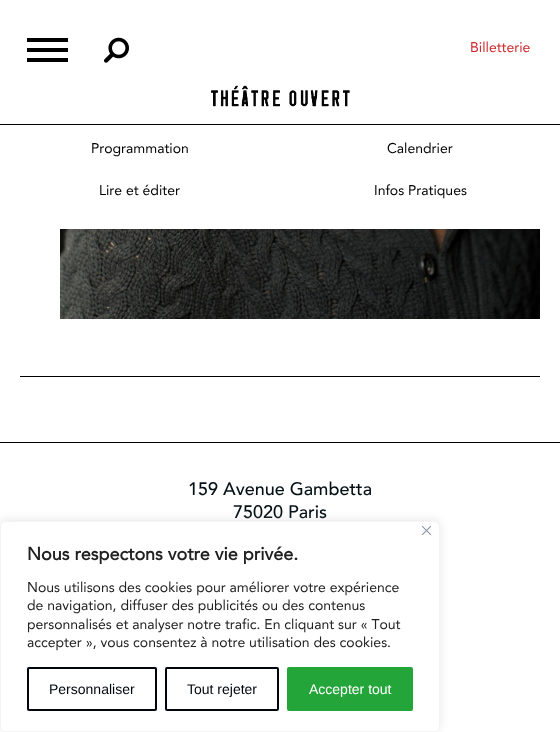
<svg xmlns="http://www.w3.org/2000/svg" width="560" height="732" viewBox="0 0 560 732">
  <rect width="100%" height="100%" fill="rgb(255,255,255)"/>
  <rect x="0" y="124" width="560" height="1" fill="rgb(0,0,0)"/>
  <rect x="27" y="48" width="41" height="4" fill="rgb(0,0,0)"/>
  <rect x="27" y="38" width="41" height="4" fill="rgb(0,0,0)"/>
  <rect x="27" y="58" width="41" height="4" fill="rgb(0,0,0)"/>
  <image x="104" y="37" width="25" height="26" href="pic1.png"/>
  <text x="470" y="52" font-family="Avenir" font-size="14" fill="rgb(205,39,41)">Billetterie</text>
  <image x="211" y="85" width="139" height="22" href="pic2.png"/>
  <g font-family="Avenir" font-size="14" fill="rgb(0,0,0)">
    <text x="91" y="153">Programmation</text>
    <text x="387" y="153">Calendrier</text>
    <text x="99" y="195">Lire et éditer</text>
    <text x="374" y="195">Infos Pratiques</text>
  </g>
  <image x="60" y="229" width="480" height="90" href="pic3.png"/>
  <rect x="20" y="376" width="520" height="1" fill="rgb(0,0,0)"/>
  <rect x="0" y="442" width="560" height="1" fill="rgb(0,0,0)"/>
  <g font-family="Avenir" font-size="18" font-weight="500" fill="rgb(5,16,23)">
    <text x="188" y="495">159 Avenue Gambetta</text>
    <text x="233" y="518">75020 Paris</text>
  </g>
  <rect x="0" y="520" width="440" height="211" rx="6" fill="rgba(172,171,171,0.3)" filter="blur(5px)"/>
  <rect x="0.5" y="521.5" width="439" height="210" rx="5.5" fill="rgb(255,255,255)" stroke="rgb(244,244,244)"/>
  <image x="422" y="526" width="9" height="9" href="pic4.png"/>
  <text x="27" y="560" font-family="Avenir" font-size="18" font-weight="bold" fill="rgb(33,33,33)">Nous respectons votre vie privée.</text>
  <g font-family="Avenir" font-size="14" fill="rgb(33,33,33)">
    <text>
      <tspan x="27" y="592">Nous utilisons des cookies pour améliorer votre expérience</tspan>
      <tspan x="27" y="610">de navigation, diffuser des publicités ou des contenus</tspan>
      <tspan x="27" y="629">personnalisés et analyser notre trafic. En cliquant sur « Tout</tspan>
      <tspan x="27" y="647">accepter », vous consentez à notre utilisation des cookies.</tspan>
    </text>
  </g>
  <rect x="28" y="668" width="128" height="42" rx="1" fill="none" stroke="rgb(1,6,14)" stroke-width="2"/>
  <text x="49" y="694" font-family="Liberation Sans" font-size="14" fill="rgb(1,6,14)">Personnaliser</text>
  <rect x="166" y="668" width="112" height="42" rx="1" fill="none" stroke="rgb(1,6,14)" stroke-width="2"/>
  <text x="187" y="694" font-family="Liberation Sans" font-size="14" fill="rgb(1,6,14)">Tout rejeter</text>
  <rect x="288" y="668" width="124" height="42" rx="1" fill="rgb(35,165,58)" stroke="rgb(35,165,58)" stroke-width="2"/>
  <text x="309" y="694" font-family="Liberation Sans" font-size="14" fill="rgb(255,255,255)">Accepter tout</text>
</svg>
